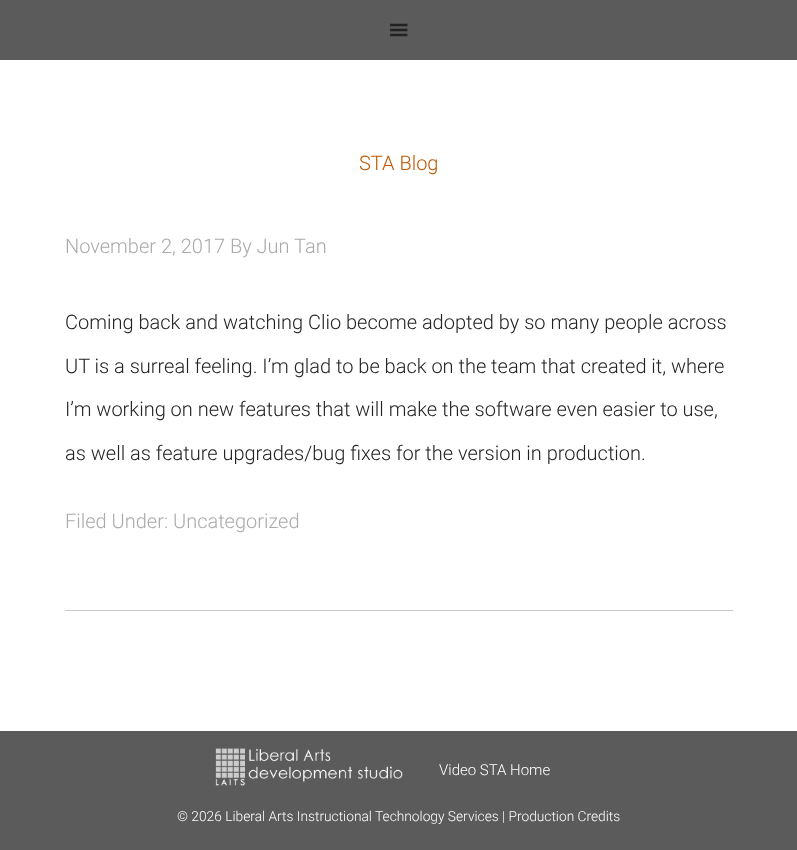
<svg xmlns="http://www.w3.org/2000/svg" width="797" height="850" viewBox="0 0 797 850">
  <rect width="100%" height="100%" fill="rgb(255,255,255)"/>
  <rect x="0" y="0" width="797" height="60" fill="rgb(91,91,91)"/>
  <image x="390" y="23" width="18" height="14" href="pic1.png"/>
  <text x="359" y="170" font-family="Roboto" font-size="20" font-weight="300" fill="rgb(191,87,0)">STA Blog</text>
  <text x="65" y="253" font-family="Roboto" font-size="20" font-weight="300" fill="rgb(170,170,170)">November 2, 2017 By Jun Tan</text>
  <g font-family="Roboto" font-size="20" font-weight="300" fill="rgb(34,34,34)">
    <text x="65" y="329">Coming back and watching Clio become adopted by so many people across</text>
    <text x="65" y="373">UT is a surreal feeling. I’m glad to be back on the team that created it, where</text>
    <text x="65" y="416">I’m working on new features that will make the software even easier to use,</text>
    <text x="65" y="460">as well as feature upgrades/bug fixes for the version in production.</text>
  </g>
  <rect x="65" y="610" width="668" height="1" fill="rgb(200,200,200)"/>
  <text x="65" y="528" font-family="Roboto" font-size="20" font-weight="300" fill="rgb(170,170,170)">Filed Under: Uncategorized</text>
  <rect x="0" y="731" width="797" height="119" fill="rgb(91,91,91)"/>
  <image x="215" y="748" width="188" height="38" href="pic2.png"/>
  <text x="439" y="775" font-family="Roboto" font-size="15" font-weight="300" fill="rgb(255,255,255)">Video STA Home</text>
  <text x="177" y="821" font-family="Roboto" font-size="13.75" font-weight="300" fill="rgb(255,255,255)">© 2026 Liberal Arts Instructional Technology Services | Production Credits</text>
</svg>
